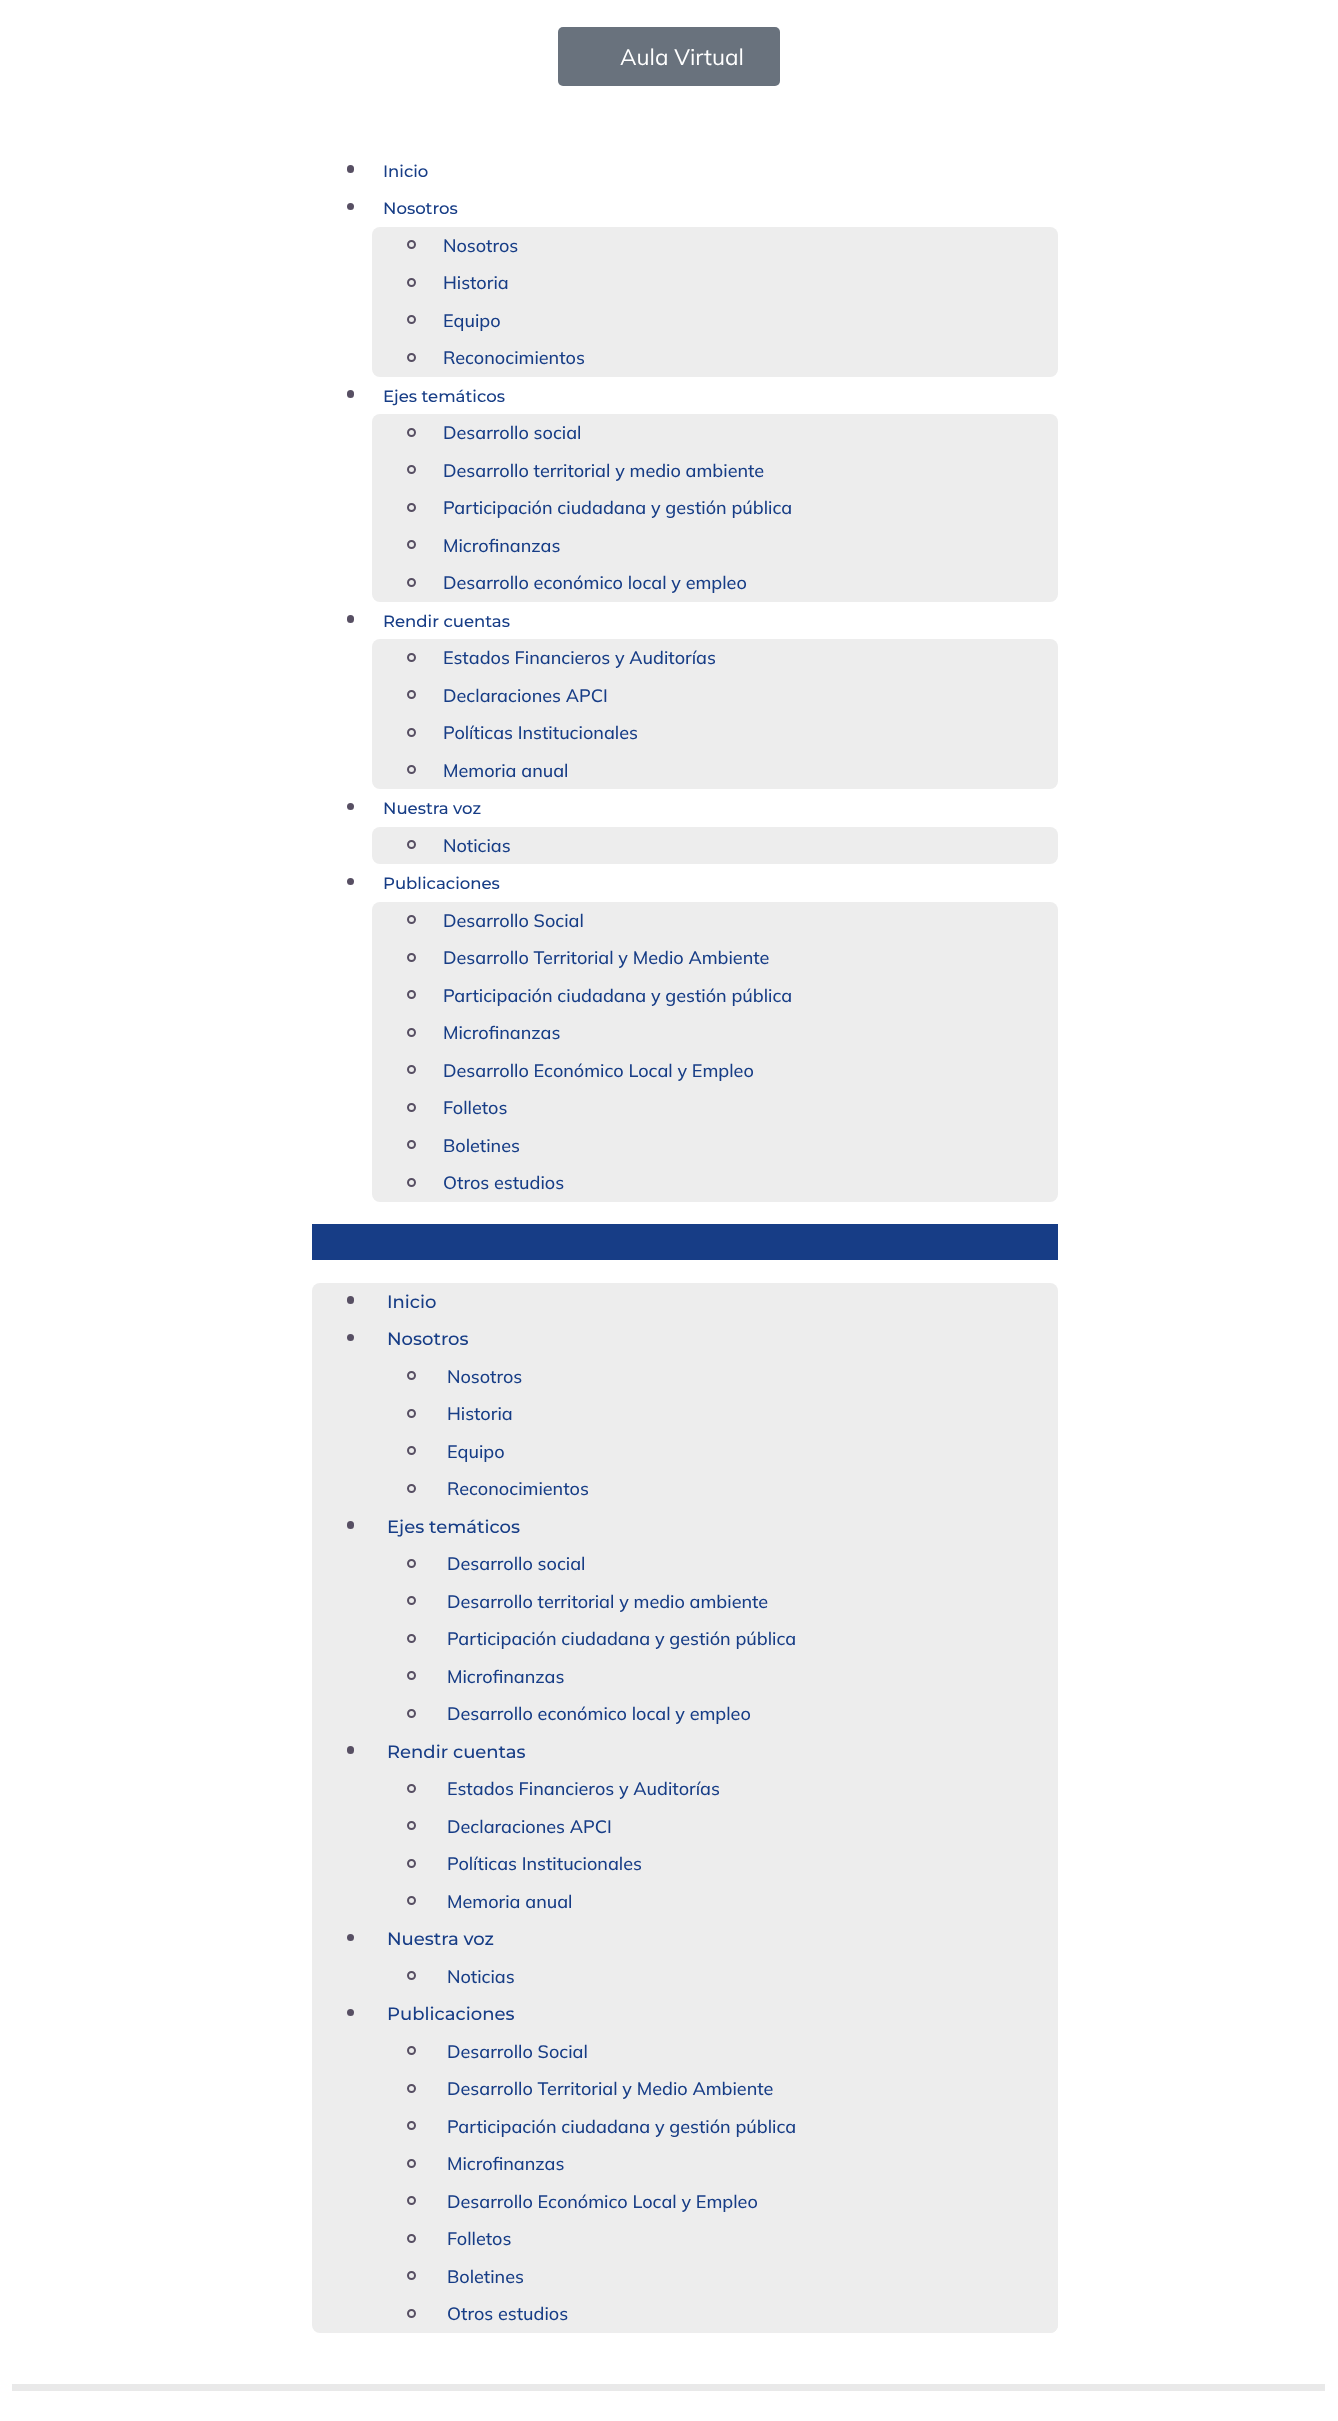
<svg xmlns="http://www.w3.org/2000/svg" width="1338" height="2421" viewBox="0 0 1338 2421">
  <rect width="100%" height="100%" fill="rgb(255,255,255)"/>
  <rect x="558" y="27" width="222" height="59" rx="5" fill="rgb(105,114,125)"/>
  <text x="620" y="65" font-family="Mulish" font-size="22.5" font-weight="200" fill="rgb(255,255,255)">Aula Virtual</text>
  <rect x="12" y="2384" width="1313" height="7" fill="rgb(233,233,233)"/>
  <rect x="347" y="165" width="7" height="8" rx="3.5" fill="rgb(87,79,99)"/>
  <text x="383" y="177" font-family="Montserrat" font-size="16.5" font-weight="500" fill="rgb(23,61,134)">Inicio</text>
  <circle cx="350.5" cy="206.5" r="3.5" fill="rgb(87,79,99)"/>
  <text x="383" y="214" font-family="Montserrat" font-size="16.5" font-weight="500" fill="rgb(23,61,134)">Nosotros</text>
  <rect x="372" y="227" width="686" height="150" rx="8" fill="rgb(237,237,237)"/>
  <circle cx="411.5" cy="244.5" r="3.5" fill="none" stroke="rgb(87,79,99)" stroke-width="2"/>
  <text x="443" y="252" font-family="Mulish" font-size="18" font-weight="500" fill="rgb(23,61,134)">Nosotros</text>
  <circle cx="411.5" cy="282.5" r="3.5" fill="none" stroke="rgb(87,79,99)" stroke-width="2"/>
  <text x="443" y="289" font-family="Mulish" font-size="18" font-weight="500" fill="rgb(23,61,134)">Historia</text>
  <circle cx="411.5" cy="319.5" r="3.5" fill="none" stroke="rgb(87,79,99)" stroke-width="2"/>
  <text x="443" y="327" font-family="Mulish" font-size="18" font-weight="500" fill="rgb(23,61,134)">Equipo</text>
  <circle cx="411.5" cy="357.5" r="3.5" fill="none" stroke="rgb(87,79,99)" stroke-width="2"/>
  <text x="443" y="364" font-family="Mulish" font-size="18" font-weight="500" fill="rgb(23,61,134)">Reconocimientos</text>
  <rect x="347" y="390" width="7" height="8" rx="3.5" fill="rgb(87,79,99)"/>
  <text x="383" y="402" font-family="Montserrat" font-size="16.5" font-weight="500" fill="rgb(23,61,134)">Ejes temáticos</text>
  <rect x="372" y="414" width="686" height="188" rx="8" fill="rgb(237,237,237)"/>
  <circle cx="411.5" cy="432.5" r="3.5" fill="none" stroke="rgb(87,79,99)" stroke-width="2"/>
  <text x="443" y="439" font-family="Mulish" font-size="18" font-weight="500" fill="rgb(23,61,134)">Desarrollo social</text>
  <circle cx="411.5" cy="469.5" r="3.5" fill="none" stroke="rgb(87,79,99)" stroke-width="2"/>
  <text x="443" y="477" font-family="Mulish" font-size="18" font-weight="500" fill="rgb(23,61,134)">Desarrollo territorial y medio ambiente</text>
  <circle cx="411.5" cy="507.5" r="3.5" fill="none" stroke="rgb(87,79,99)" stroke-width="2"/>
  <text x="443" y="514" font-family="Mulish" font-size="18" font-weight="500" fill="rgb(23,61,134)">Participación ciudadana y gestión pública</text>
  <circle cx="411.5" cy="544.5" r="3.5" fill="none" stroke="rgb(87,79,99)" stroke-width="2"/>
  <text x="443" y="552" font-family="Mulish" font-size="18" font-weight="500" fill="rgb(23,61,134)">Microfinanzas</text>
  <circle cx="411.5" cy="582.5" r="3.5" fill="none" stroke="rgb(87,79,99)" stroke-width="2"/>
  <text x="443" y="589" font-family="Mulish" font-size="18" font-weight="500" fill="rgb(23,61,134)">Desarrollo económico local y empleo</text>
  <rect x="347" y="615" width="7" height="8" rx="3.5" fill="rgb(87,79,99)"/>
  <text x="383" y="627" font-family="Montserrat" font-size="16.5" font-weight="500" fill="rgb(23,61,134)">Rendir cuentas</text>
  <rect x="372" y="639" width="686" height="150" rx="8" fill="rgb(237,237,237)"/>
  <circle cx="411.5" cy="657.5" r="3.5" fill="none" stroke="rgb(87,79,99)" stroke-width="2"/>
  <text x="443" y="664" font-family="Mulish" font-size="18" font-weight="500" fill="rgb(23,61,134)">Estados Financieros y Auditorías</text>
  <circle cx="411.5" cy="694.5" r="3.5" fill="none" stroke="rgb(87,79,99)" stroke-width="2"/>
  <text x="443" y="702" font-family="Mulish" font-size="18" font-weight="500" fill="rgb(23,61,134)">Declaraciones APCI</text>
  <circle cx="411.5" cy="732.5" r="3.5" fill="none" stroke="rgb(87,79,99)" stroke-width="2"/>
  <text x="443" y="739" font-family="Mulish" font-size="18" font-weight="500" fill="rgb(23,61,134)">Políticas Institucionales</text>
  <circle cx="411.5" cy="769.5" r="3.5" fill="none" stroke="rgb(87,79,99)" stroke-width="2"/>
  <text x="443" y="777" font-family="Mulish" font-size="18" font-weight="500" fill="rgb(23,61,134)">Memoria anual</text>
  <circle cx="350.5" cy="806.5" r="3.5" fill="rgb(87,79,99)"/>
  <text x="383" y="814" font-family="Montserrat" font-size="16.5" font-weight="500" fill="rgb(23,61,134)">Nuestra voz</text>
  <rect x="372" y="827" width="686" height="37" rx="8" fill="rgb(237,237,237)"/>
  <circle cx="411.5" cy="844.5" r="3.5" fill="none" stroke="rgb(87,79,99)" stroke-width="2"/>
  <text x="443" y="852" font-family="Mulish" font-size="18" font-weight="500" fill="rgb(23,61,134)">Noticias</text>
  <circle cx="350.5" cy="881.5" r="3.5" fill="rgb(87,79,99)"/>
  <text x="383" y="889" font-family="Montserrat" font-size="16.5" font-weight="500" fill="rgb(23,61,134)">Publicaciones</text>
  <rect x="372" y="902" width="686" height="300" rx="8" fill="rgb(237,237,237)"/>
  <circle cx="411.5" cy="919.5" r="3.5" fill="none" stroke="rgb(87,79,99)" stroke-width="2"/>
  <text x="443" y="927" font-family="Mulish" font-size="18" font-weight="500" fill="rgb(23,61,134)">Desarrollo Social</text>
  <circle cx="411.5" cy="957.5" r="3.5" fill="none" stroke="rgb(87,79,99)" stroke-width="2"/>
  <text x="443" y="964" font-family="Mulish" font-size="18" font-weight="500" fill="rgb(23,61,134)">Desarrollo Territorial y Medio Ambiente</text>
  <circle cx="411.5" cy="994.5" r="3.5" fill="none" stroke="rgb(87,79,99)" stroke-width="2"/>
  <text x="443" y="1002" font-family="Mulish" font-size="18" font-weight="500" fill="rgb(23,61,134)">Participación ciudadana y gestión pública</text>
  <circle cx="411.5" cy="1032.5" r="3.5" fill="none" stroke="rgb(87,79,99)" stroke-width="2"/>
  <text x="443" y="1039" font-family="Mulish" font-size="18" font-weight="500" fill="rgb(23,61,134)">Microfinanzas</text>
  <circle cx="411.5" cy="1069.5" r="3.5" fill="none" stroke="rgb(87,79,99)" stroke-width="2"/>
  <text x="443" y="1077" font-family="Mulish" font-size="18" font-weight="500" fill="rgb(23,61,134)">Desarrollo Económico Local y Empleo</text>
  <circle cx="411.5" cy="1107.5" r="3.5" fill="none" stroke="rgb(87,79,99)" stroke-width="2"/>
  <text x="443" y="1114" font-family="Mulish" font-size="18" font-weight="500" fill="rgb(23,61,134)">Folletos</text>
  <circle cx="411.5" cy="1144.5" r="3.5" fill="none" stroke="rgb(87,79,99)" stroke-width="2"/>
  <text x="443" y="1152" font-family="Mulish" font-size="18" font-weight="500" fill="rgb(23,61,134)">Boletines</text>
  <circle cx="411.5" cy="1182.5" r="3.5" fill="none" stroke="rgb(87,79,99)" stroke-width="2"/>
  <text x="443" y="1189" font-family="Mulish" font-size="18" font-weight="500" fill="rgb(23,61,134)">Otros estudios</text>
  <rect x="312" y="1224" width="746" height="36" fill="rgb(23,61,134)"/>
  <rect x="312" y="1283" width="746" height="1050" rx="8" fill="rgb(237,237,237)"/>
  <rect x="347" y="1296" width="7" height="8" rx="3.5" fill="rgb(87,79,99)"/>
  <text x="387" y="1308" font-family="Montserrat" font-size="18" font-weight="500" fill="rgb(23,61,134)">Inicio</text>
  <circle cx="350.5" cy="1337.5" r="3.5" fill="rgb(87,79,99)"/>
  <text x="387" y="1345" font-family="Montserrat" font-size="18" font-weight="500" fill="rgb(23,61,134)">Nosotros</text>
  <circle cx="411.5" cy="1375.5" r="3.5" fill="none" stroke="rgb(87,79,99)" stroke-width="2"/>
  <text x="447" y="1383" font-family="Mulish" font-size="18" font-weight="500" fill="rgb(23,61,134)">Nosotros</text>
  <circle cx="411.5" cy="1413.5" r="3.5" fill="none" stroke="rgb(87,79,99)" stroke-width="2"/>
  <text x="447" y="1420" font-family="Mulish" font-size="18" font-weight="500" fill="rgb(23,61,134)">Historia</text>
  <circle cx="411.5" cy="1450.5" r="3.5" fill="none" stroke="rgb(87,79,99)" stroke-width="2"/>
  <text x="447" y="1458" font-family="Mulish" font-size="18" font-weight="500" fill="rgb(23,61,134)">Equipo</text>
  <circle cx="411.5" cy="1488.5" r="3.5" fill="none" stroke="rgb(87,79,99)" stroke-width="2"/>
  <text x="447" y="1495" font-family="Mulish" font-size="18" font-weight="500" fill="rgb(23,61,134)">Reconocimientos</text>
  <rect x="347" y="1521" width="7" height="8" rx="3.5" fill="rgb(87,79,99)"/>
  <text x="387" y="1533" font-family="Montserrat" font-size="18" font-weight="500" fill="rgb(23,61,134)">Ejes temáticos</text>
  <circle cx="411.5" cy="1563.5" r="3.5" fill="none" stroke="rgb(87,79,99)" stroke-width="2"/>
  <text x="447" y="1570" font-family="Mulish" font-size="18" font-weight="500" fill="rgb(23,61,134)">Desarrollo social</text>
  <circle cx="411.5" cy="1600.5" r="3.5" fill="none" stroke="rgb(87,79,99)" stroke-width="2"/>
  <text x="447" y="1608" font-family="Mulish" font-size="18" font-weight="500" fill="rgb(23,61,134)">Desarrollo territorial y medio ambiente</text>
  <circle cx="411.5" cy="1638.5" r="3.5" fill="none" stroke="rgb(87,79,99)" stroke-width="2"/>
  <text x="447" y="1645" font-family="Mulish" font-size="18" font-weight="500" fill="rgb(23,61,134)">Participación ciudadana y gestión pública</text>
  <circle cx="411.5" cy="1675.5" r="3.5" fill="none" stroke="rgb(87,79,99)" stroke-width="2"/>
  <text x="447" y="1683" font-family="Mulish" font-size="18" font-weight="500" fill="rgb(23,61,134)">Microfinanzas</text>
  <circle cx="411.5" cy="1713.5" r="3.5" fill="none" stroke="rgb(87,79,99)" stroke-width="2"/>
  <text x="447" y="1720" font-family="Mulish" font-size="18" font-weight="500" fill="rgb(23,61,134)">Desarrollo económico local y empleo</text>
  <rect x="347" y="1746" width="7" height="8" rx="3.5" fill="rgb(87,79,99)"/>
  <text x="387" y="1758" font-family="Montserrat" font-size="18" font-weight="500" fill="rgb(23,61,134)">Rendir cuentas</text>
  <circle cx="411.5" cy="1788.5" r="3.5" fill="none" stroke="rgb(87,79,99)" stroke-width="2"/>
  <text x="447" y="1795" font-family="Mulish" font-size="18" font-weight="500" fill="rgb(23,61,134)">Estados Financieros y Auditorías</text>
  <circle cx="411.5" cy="1825.5" r="3.5" fill="none" stroke="rgb(87,79,99)" stroke-width="2"/>
  <text x="447" y="1833" font-family="Mulish" font-size="18" font-weight="500" fill="rgb(23,61,134)">Declaraciones APCI</text>
  <circle cx="411.5" cy="1863.5" r="3.5" fill="none" stroke="rgb(87,79,99)" stroke-width="2"/>
  <text x="447" y="1870" font-family="Mulish" font-size="18" font-weight="500" fill="rgb(23,61,134)">Políticas Institucionales</text>
  <circle cx="411.5" cy="1900.5" r="3.5" fill="none" stroke="rgb(87,79,99)" stroke-width="2"/>
  <text x="447" y="1908" font-family="Mulish" font-size="18" font-weight="500" fill="rgb(23,61,134)">Memoria anual</text>
  <circle cx="350.5" cy="1937.5" r="3.5" fill="rgb(87,79,99)"/>
  <text x="387" y="1945" font-family="Montserrat" font-size="18" font-weight="500" fill="rgb(23,61,134)">Nuestra voz</text>
  <circle cx="411.5" cy="1975.5" r="3.5" fill="none" stroke="rgb(87,79,99)" stroke-width="2"/>
  <text x="447" y="1983" font-family="Mulish" font-size="18" font-weight="500" fill="rgb(23,61,134)">Noticias</text>
  <circle cx="350.5" cy="2012.5" r="3.5" fill="rgb(87,79,99)"/>
  <text x="387" y="2020" font-family="Montserrat" font-size="18" font-weight="500" fill="rgb(23,61,134)">Publicaciones</text>
  <rect x="372" y="2033" width="686" height="300" rx="8" fill="rgb(237,237,237)"/>
  <circle cx="411.5" cy="2050.5" r="3.5" fill="none" stroke="rgb(87,79,99)" stroke-width="2"/>
  <text x="447" y="2058" font-family="Mulish" font-size="18" font-weight="500" fill="rgb(23,61,134)">Desarrollo Social</text>
  <circle cx="411.5" cy="2088.5" r="3.5" fill="none" stroke="rgb(87,79,99)" stroke-width="2"/>
  <text x="447" y="2095" font-family="Mulish" font-size="18" font-weight="500" fill="rgb(23,61,134)">Desarrollo Territorial y Medio Ambiente</text>
  <circle cx="411.5" cy="2125.5" r="3.5" fill="none" stroke="rgb(87,79,99)" stroke-width="2"/>
  <text x="447" y="2133" font-family="Mulish" font-size="18" font-weight="500" fill="rgb(23,61,134)">Participación ciudadana y gestión pública</text>
  <circle cx="411.5" cy="2163.5" r="3.5" fill="none" stroke="rgb(87,79,99)" stroke-width="2"/>
  <text x="447" y="2170" font-family="Mulish" font-size="18" font-weight="500" fill="rgb(23,61,134)">Microfinanzas</text>
  <circle cx="411.5" cy="2200.5" r="3.5" fill="none" stroke="rgb(87,79,99)" stroke-width="2"/>
  <text x="447" y="2208" font-family="Mulish" font-size="18" font-weight="500" fill="rgb(23,61,134)">Desarrollo Económico Local y Empleo</text>
  <circle cx="411.5" cy="2238.5" r="3.5" fill="none" stroke="rgb(87,79,99)" stroke-width="2"/>
  <text x="447" y="2245" font-family="Mulish" font-size="18" font-weight="500" fill="rgb(23,61,134)">Folletos</text>
  <circle cx="411.5" cy="2275.5" r="3.5" fill="none" stroke="rgb(87,79,99)" stroke-width="2"/>
  <text x="447" y="2283" font-family="Mulish" font-size="18" font-weight="500" fill="rgb(23,61,134)">Boletines</text>
  <circle cx="411.5" cy="2313.5" r="3.5" fill="none" stroke="rgb(87,79,99)" stroke-width="2"/>
  <text x="447" y="2320" font-family="Mulish" font-size="18" font-weight="500" fill="rgb(23,61,134)">Otros estudios</text>
</svg>
